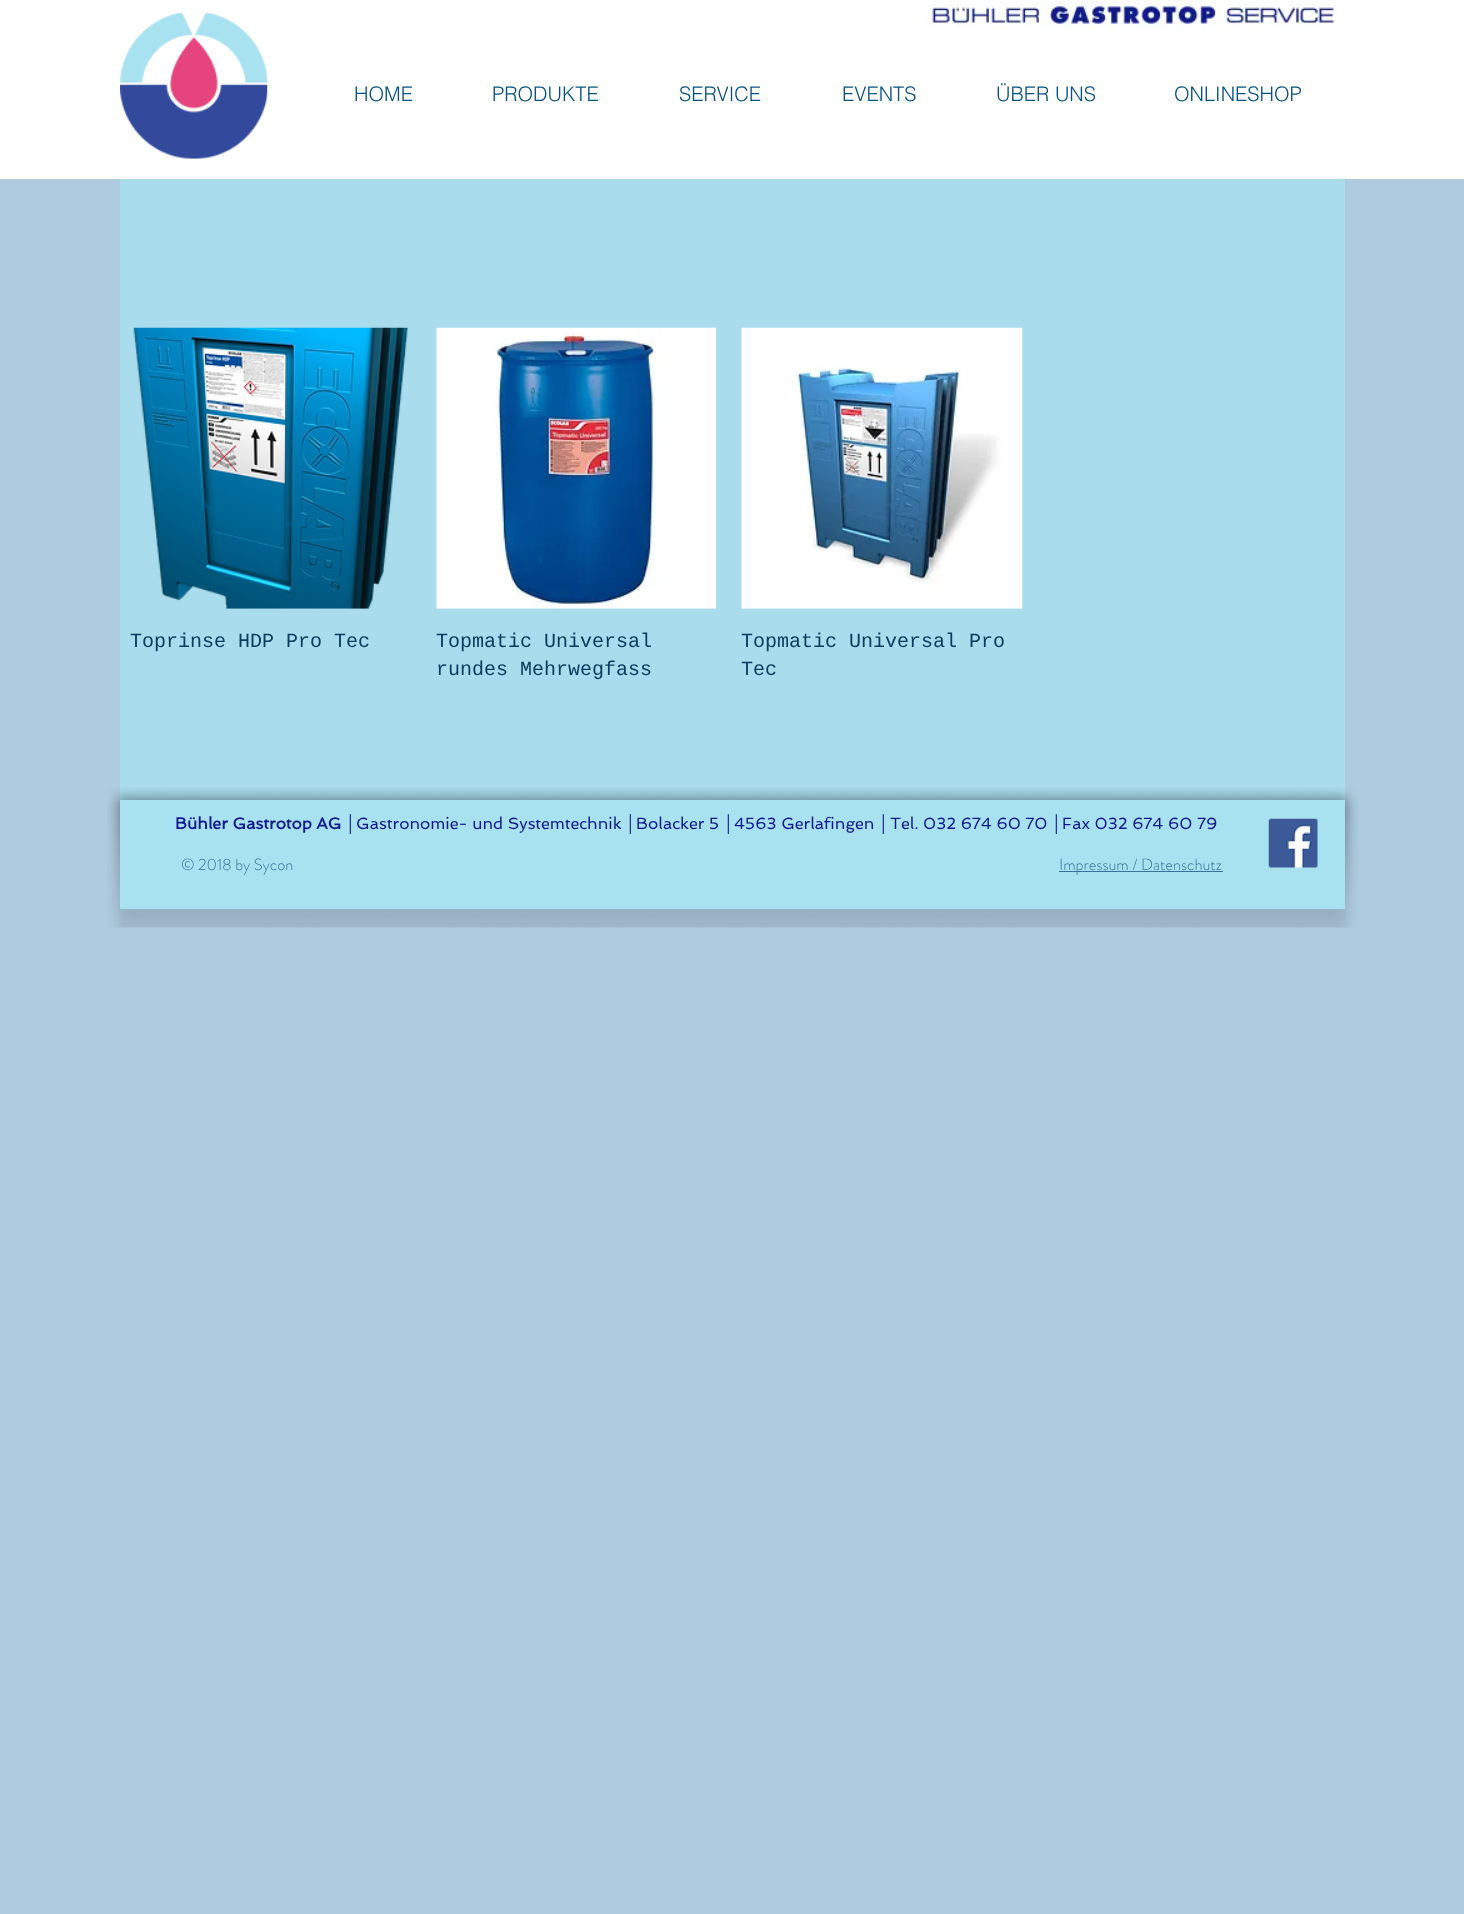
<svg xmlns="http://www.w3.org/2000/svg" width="1464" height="1914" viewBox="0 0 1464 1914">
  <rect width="100%" height="100%" fill="rgb(175,203,224)"/>
  <rect x="0" y="0" width="1464" height="179" fill="rgb(255,255,255)"/>
  <image x="120" y="12" width="148" height="147" href="pic1.png"/>
  <image x="925" y="0" width="411" height="29" href="pic2.png"/>
  <g font-family="helvetica" font-size="20" font-weight="300" fill="rgb(4,81,132)">
    <text x="354" y="101">HOME</text>
    <text x="492" y="101">PRODUKTE</text>
    <text x="679" y="101">SERVICE</text>
    <text x="842" y="101">EVENTS</text>
    <text x="996" y="101">ÜBER UNS</text>
    <text x="1174" y="101">ONLINESHOP</text>
  </g>
  <rect x="120" y="179" width="1225" height="621" fill="rgb(169,221,237)"/>
  <image x="133" y="327" width="276" height="282" href="pic3.png"/>
  <text x="130" y="647" font-family="Liberation Mono" font-size="20" fill="rgb(12,60,96)">Toprinse HDP Pro Tec</text>
  <image x="436" y="327" width="281" height="282" href="pic4.png"/>
  <g font-family="Liberation Mono" font-size="20" fill="rgb(12,60,96)">
    <text>
      <tspan x="436" y="647">Topmatic Universal</tspan>
      <tspan x="436" y="675">rundes Mehrwegfass</tspan>
    </text>
  </g>
  <image x="741" y="327" width="282" height="282" href="pic5.png"/>
  <g font-family="Liberation Mono" font-size="20" fill="rgb(12,60,96)">
    <text>
      <tspan x="741" y="647">Topmatic Universal Pro</tspan>
      <tspan x="741" y="675">Tec</tspan>
    </text>
  </g>
  <image x="107" y="787" width="57" height="141" href="pic6.png"/>
  <image x="163" y="787" width="1139" height="141" href="pic7.png"/>
  <image x="1301" y="787" width="57" height="141" href="pic8.png"/>
  <rect x="120" y="800" width="1225" height="109" fill="rgb(168,226,240)"/>
  <text x="175" y="829" font-family="Spinnaker" font-size="16.25" font-weight="bold" fill="rgb(19,26,140)">Bühler Gastrotop AG</text>
  <text x="346" y="829" font-family="Liberation Sans" font-size="16.25" font-weight="bold" fill="rgb(19,26,140)">│</text>
  <text x="356" y="829" font-family="Spinnaker" font-size="16.25" fill="rgb(19,26,140)">Gastronomie- und Systemtechnik</text>
  <text x="626" y="829" font-family="Liberation Sans" font-size="16.25" fill="rgb(19,26,140)">│</text>
  <text x="636" y="829" font-family="Spinnaker" font-size="16.25" fill="rgb(19,26,140)">Bolacker 5</text>
  <text x="724" y="829" font-family="Liberation Sans" font-size="16.25" fill="rgb(19,26,140)">│</text>
  <text x="734" y="829" font-family="Spinnaker" font-size="16.25" fill="rgb(19,26,140)">4563 Gerlafingen</text>
  <text x="879" y="829" font-family="Liberation Sans" font-size="16.25" fill="rgb(19,26,140)">│</text>
  <text x="890" y="829" font-family="Spinnaker" font-size="16.25" fill="rgb(19,26,140)">Tel. 032 674 60 70</text>
  <text x="1052" y="829" font-family="Liberation Sans" font-size="16.25" fill="rgb(19,26,140)">│</text>
  <text x="1062" y="829" font-family="Spinnaker" font-size="16.25" fill="rgb(19,26,140)">Fax 032 674 60 79</text>
  <image x="1268" y="818" width="50" height="50" href="pic9.png"/>
  <text x="181" y="870" font-family="'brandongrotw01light'" font-size="16.25" font-weight="300" fill="rgb(57,114,155)">© 2018 by Sycon</text>
  <rect x="1059" y="871" width="164" height="1" fill="rgb(57,114,155)"/>
  <text x="1059" y="870" font-family="'brandongrotw01light'" font-size="16.25" font-weight="300" fill="rgb(57,114,155)">Impressum / Datenschutz</text>
</svg>
